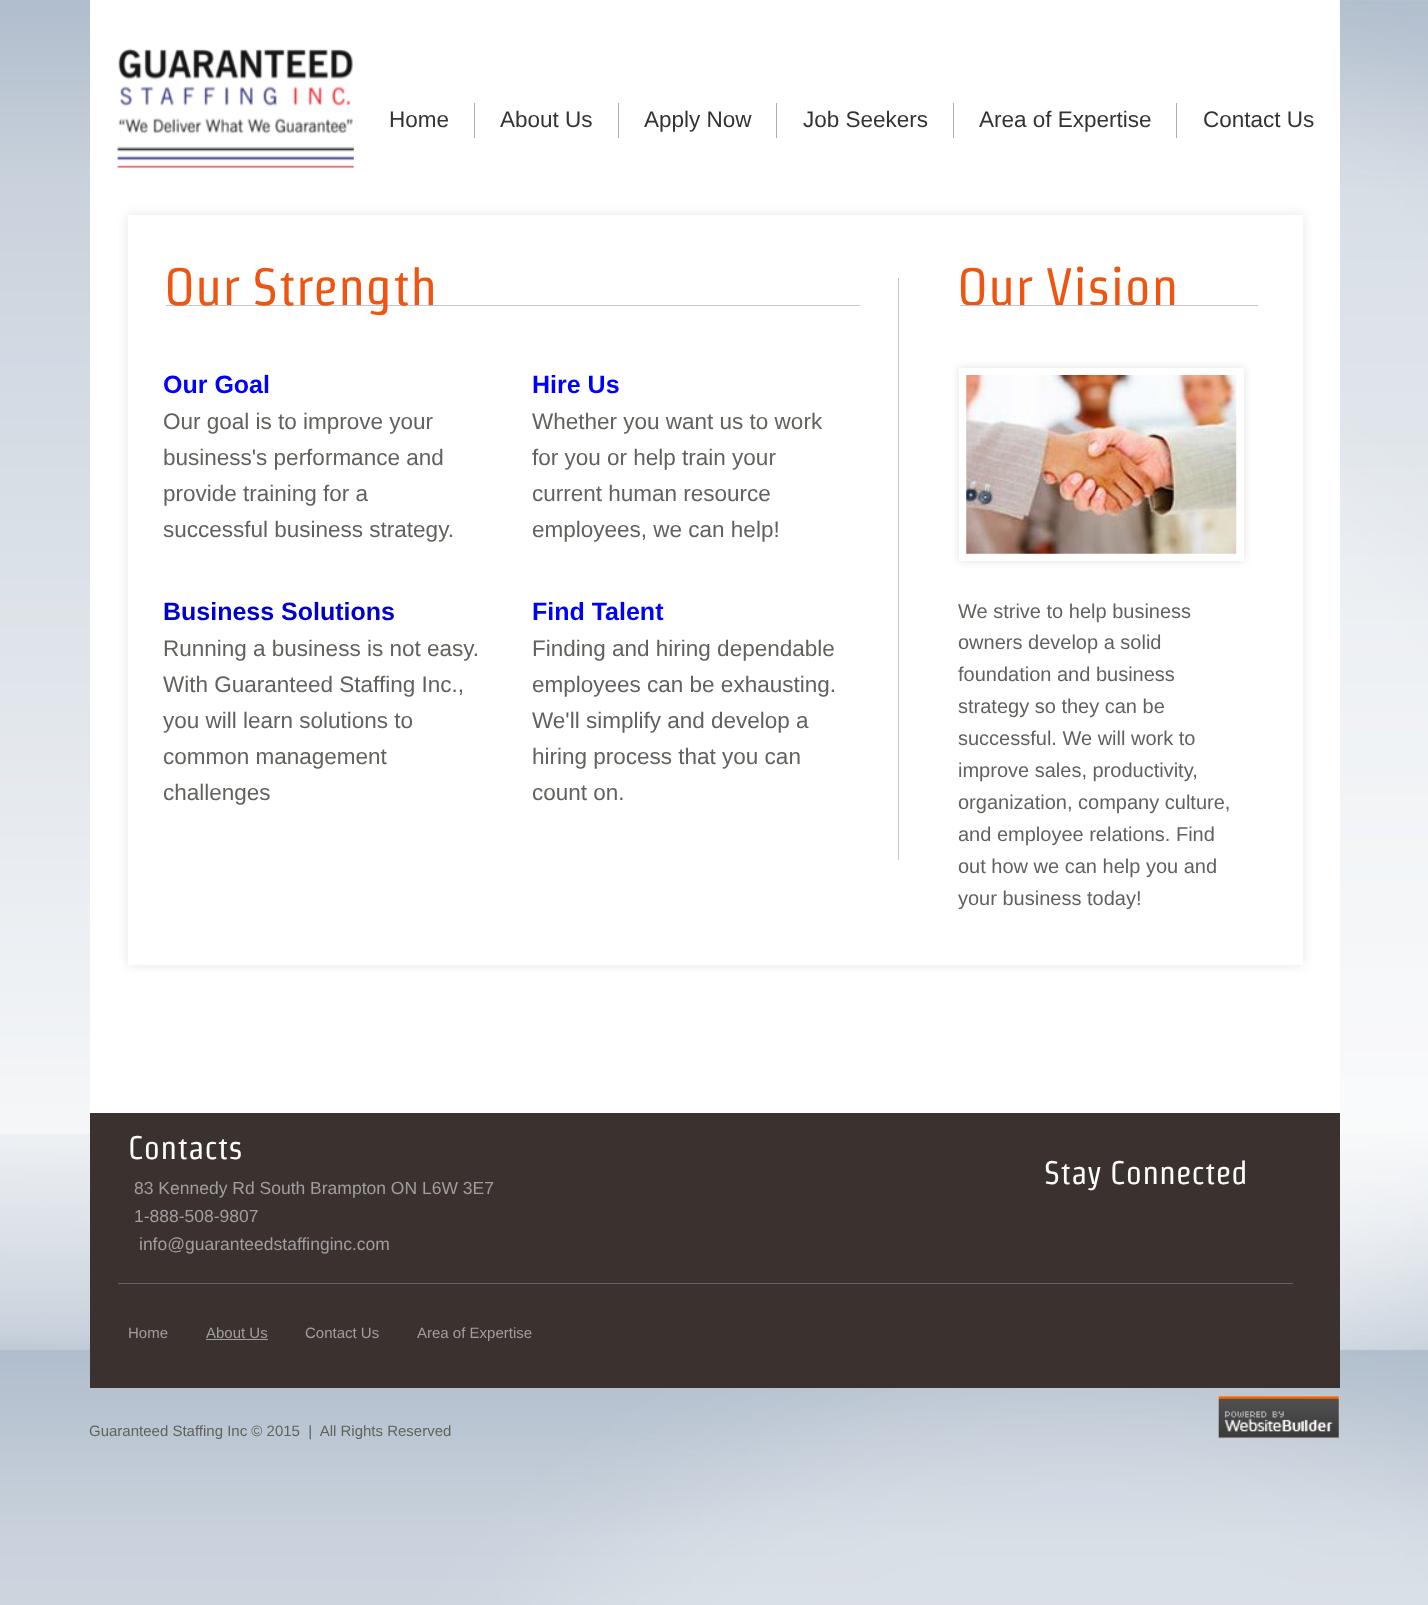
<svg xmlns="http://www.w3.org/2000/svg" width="1428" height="1605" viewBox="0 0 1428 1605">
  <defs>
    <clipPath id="clip1"><path d="M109 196H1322V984H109ZM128 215H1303V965H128Z" clip-rule="evenodd"/></clipPath>
  </defs>
  <rect width="100%" height="100%" fill="rgb(255,255,255)"/>
  <image x="0" y="0" width="1428" height="1605" href="pic1.png"/>
  <rect x="90" y="0" width="1250" height="1113" fill="rgb(255,255,255)"/>
  <image x="117" y="48" width="237" height="120" href="pic2.png"/>
  <rect x="474" y="103" width="1" height="35" fill="rgb(174,174,174)"/>
  <text x="389" y="127" font-family="Liberation Sans" font-size="22.5" fill="rgb(51,51,51)">Home</text>
  <rect x="618" y="103" width="1" height="35" fill="rgb(174,174,174)"/>
  <text x="500" y="127" font-family="Liberation Sans" font-size="22.5" fill="rgb(51,51,51)">About Us</text>
  <rect x="776" y="103" width="1" height="35" fill="rgb(174,174,174)"/>
  <text x="644" y="127" font-family="Liberation Sans" font-size="22.5" fill="rgb(51,51,51)">Apply Now</text>
  <rect x="953" y="103" width="1" height="35" fill="rgb(174,174,174)"/>
  <text x="803" y="127" font-family="Liberation Sans" font-size="22.5" fill="rgb(51,51,51)">Job Seekers</text>
  <rect x="1176" y="103" width="1" height="35" fill="rgb(174,174,174)"/>
  <g font-family="Liberation Sans" font-size="22.5" fill="rgb(51,51,51)">
    <text x="979" y="127">Area of Expertise</text>
    <text x="1203" y="127">Contact Us</text>
  </g>
  <g clip-path="url(#clip1)">
    <rect x="128" y="215" width="1175" height="750" fill="rgba(0,0,0,0.1)" filter="blur(6px)"/>
  </g>
  <rect x="1302" y="215" width="1" height="750" fill="rgba(255,255,255,0.95)"/>
  <rect x="166" y="305" width="694" height="1" fill="rgb(198,197,197)"/>
  <text x="164" y="305" font-family="Strait" font-size="52.5" fill="rgb(238,85,17)">Our Strength</text>
  <rect x="898" y="278" width="1" height="582" fill="rgb(198,197,197)"/>
  <text x="957" y="305" font-family="Strait" font-size="52.5" fill="rgb(238,85,17)">Our Vision</text>
  <rect x="960" y="305" width="298" height="1" fill="rgb(198,197,197)"/>
  <text x="163" y="393" font-family="Liberation Sans" font-size="25" font-weight="bold" fill="rgb(0,0,255)">Our Goal</text>
  <g font-family="Liberation Sans" font-size="22.5" fill="rgb(99,97,94)">
    <text>
      <tspan x="163" y="429">Our goal is to improve your</tspan>
      <tspan x="163" y="465">business's performance and</tspan>
      <tspan x="163" y="501">provide training for a</tspan>
      <tspan x="163" y="537">successful business strategy.</tspan>
    </text>
  </g>
  <text x="532" y="393" font-family="Liberation Sans" font-size="25" font-weight="bold" fill="rgb(0,0,255)">Hire Us</text>
  <g font-family="Liberation Sans" font-size="22.5" fill="rgb(99,97,94)">
    <text>
      <tspan x="532" y="429">Whether you want us to work</tspan>
      <tspan x="532" y="465">for you or help train your</tspan>
      <tspan x="532" y="501">current human resource</tspan>
      <tspan x="532" y="537">employees, we can help!</tspan>
    </text>
  </g>
  <rect x="959" y="368" width="285" height="193" fill="rgba(0,0,0,0.12)" filter="blur(4.5px)"/>
  <rect x="963" y="372" width="277" height="185" fill="none" stroke="rgb(255,255,255)" stroke-width="8"/>
  <image x="966" y="375" width="271" height="179" href="pic3.png"/>
  <text x="163" y="620" font-family="Liberation Sans" font-size="25" font-weight="bold" fill="rgb(0,0,205)">Business Solutions</text>
  <g font-family="Liberation Sans" font-size="22.5" fill="rgb(99,97,94)">
    <text>
      <tspan x="163" y="656">Running a business is not easy.</tspan>
      <tspan x="163" y="692">With Guaranteed Staffing Inc.,</tspan>
      <tspan x="163" y="728">you will learn solutions to</tspan>
      <tspan x="163" y="764">common management</tspan>
      <tspan x="163" y="800">challenges</tspan>
    </text>
  </g>
  <text x="532" y="620" font-family="Liberation Sans" font-size="25" font-weight="bold" fill="rgb(0,0,255)">Find Talent</text>
  <g font-family="Liberation Sans" font-size="22.5" fill="rgb(99,97,94)">
    <text>
      <tspan x="532" y="656">Finding and hiring dependable</tspan>
      <tspan x="532" y="692">employees can be exhausting.</tspan>
      <tspan x="532" y="728">We'll simplify and develop a</tspan>
      <tspan x="532" y="764">hiring process that you can</tspan>
      <tspan x="532" y="800">count on.</tspan>
    </text>
  </g>
  <g font-family="Liberation Sans" font-size="20" fill="rgb(99,97,94)">
    <text>
      <tspan x="958" y="618">We strive to help business</tspan>
      <tspan x="958" y="649">owners develop a solid</tspan>
      <tspan x="958" y="681">foundation and business</tspan>
      <tspan x="958" y="713">strategy so they can be</tspan>
      <tspan x="958" y="745">successful. We will work to</tspan>
      <tspan x="958" y="777">improve sales, productivity,</tspan>
      <tspan x="958" y="809">organization, company culture,</tspan>
      <tspan x="958" y="841">and employee relations. Find</tspan>
      <tspan x="958" y="873">out how we can help you and</tspan>
      <tspan x="958" y="905">your business today!</tspan>
    </text>
  </g>
  <rect x="90" y="1113" width="1250" height="275" fill="rgb(59,50,47)"/>
  <g font-family="Strait" font-size="32.5" fill="rgb(255,255,255)">
    <text x="128" y="1159">Contacts</text>
    <text x="1044" y="1184">Stay Connected</text>
  </g>
  <g font-family="Liberation Sans" font-size="17.5" fill="rgb(160,158,159)">
    <text>
      <tspan x="134" y="1194">83 Kennedy Rd South Brampton ON L6W 3E7</tspan>
      <tspan x="134" y="1222">1-888-508-9807</tspan>
    </text>
    <text x="139" y="1250">info@guaranteedstaffinginc.com</text>
  </g>
  <rect x="118" y="1283" width="1175" height="1" fill="rgb(100,98,101)"/>
  <g font-family="Liberation Sans" font-size="15" fill="rgb(160,158,159)">
    <text x="128" y="1338">Home</text>
    <text x="206" y="1338">About Us</text>
  </g>
  <rect x="206" y="1339" width="62" height="1" fill="rgb(160,158,159)"/>
  <g font-family="Liberation Sans" font-size="15" fill="rgb(160,158,159)">
    <text x="305" y="1338">Contact Us</text>
    <text x="417" y="1338">Area of Expertise</text>
  </g>
  <text x="89" y="1436" font-family="Liberation Sans" font-size="15" fill="rgb(99,97,94)" xml:space="preserve">Guaranteed Staffing Inc © 2015  |  All Rights Reserved</text>
  <image x="1217" y="1395" width="123" height="44" href="pic4.png"/>
</svg>
